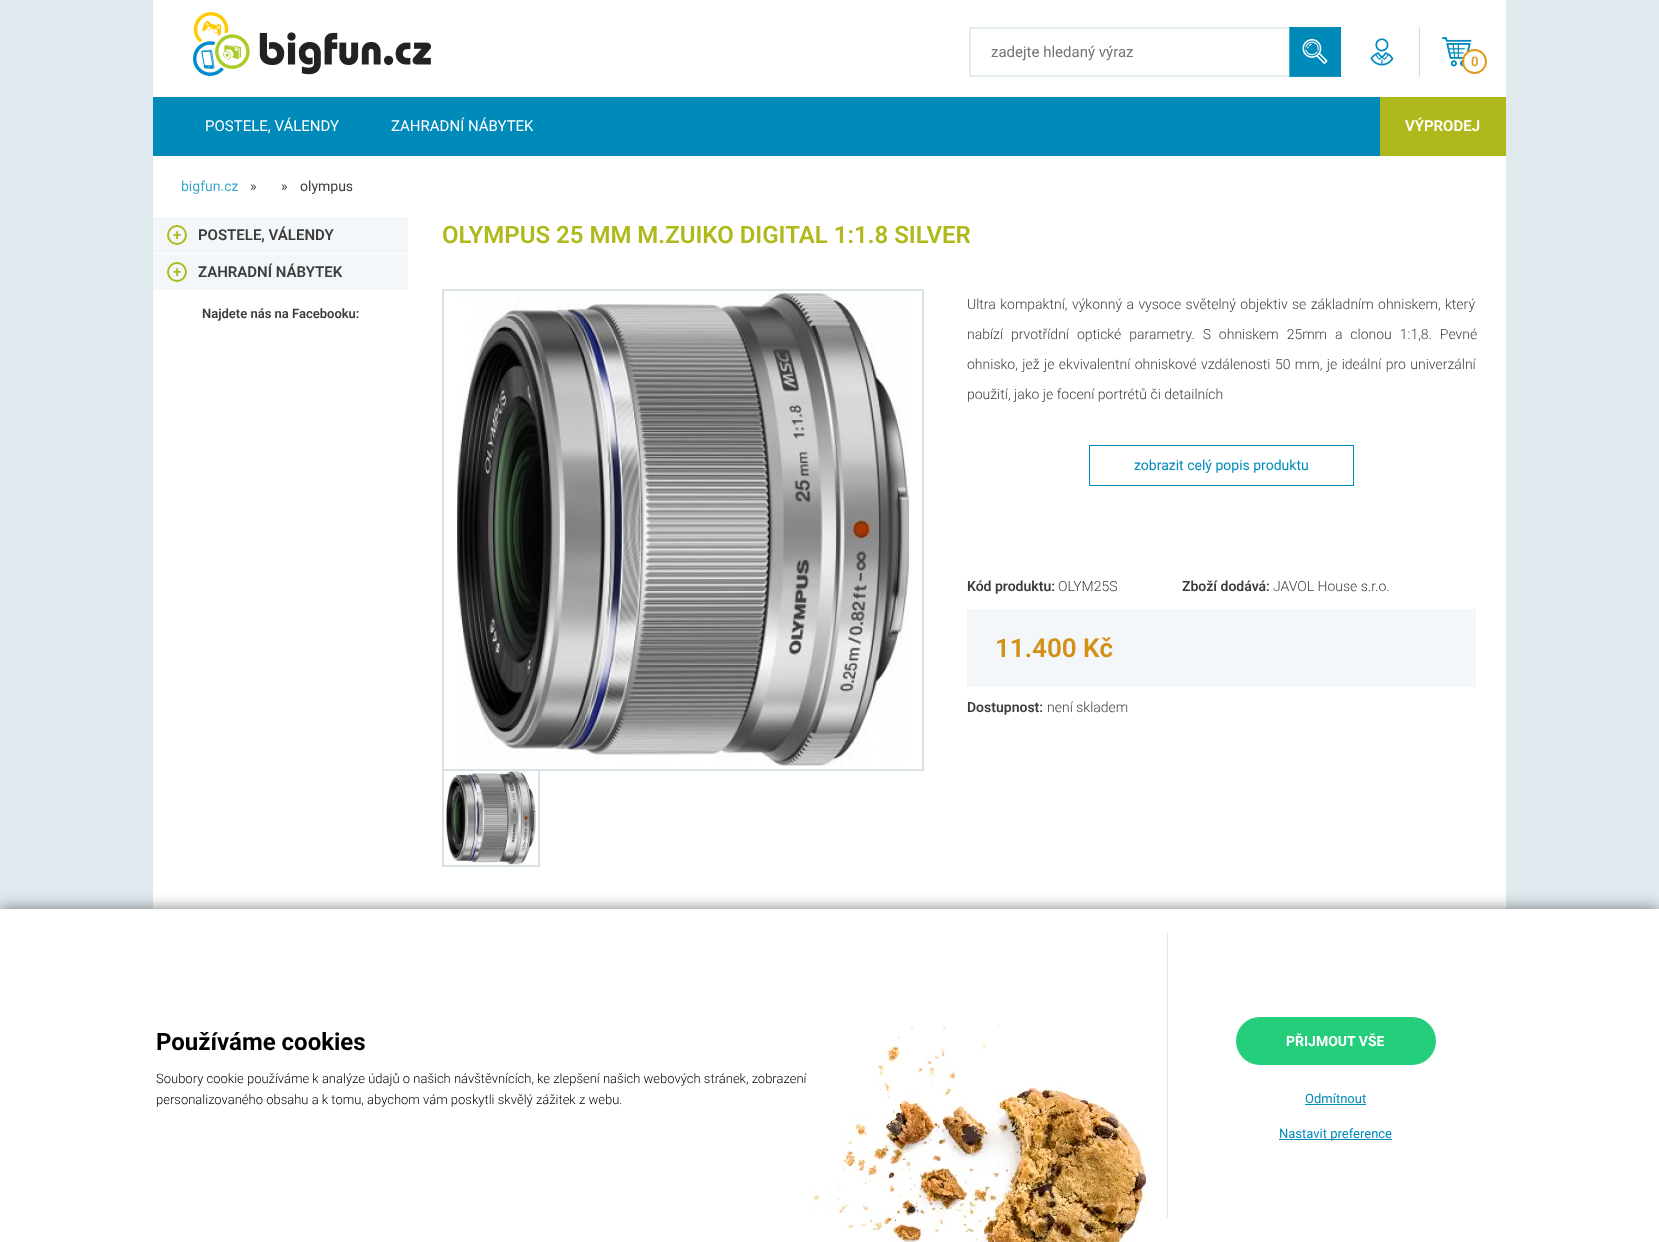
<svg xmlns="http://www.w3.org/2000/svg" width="1659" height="1242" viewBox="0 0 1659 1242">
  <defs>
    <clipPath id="clip1"><rect x="442" y="771" width="482" height="96"/></clipPath>
  </defs>
  <rect width="100%" height="100%" fill="rgb(224,233,238)"/>
  <rect x="153" y="0" width="1353" height="909" fill="rgb(255,255,255)"/>
  <image x="193" y="12" width="238" height="64" href="pic1.png"/>
  <rect x="969" y="27" width="320" height="2" fill="rgb(227,236,241)"/>
  <rect x="969" y="75" width="320" height="2" fill="rgb(227,236,241)"/>
  <rect x="969" y="27" width="2" height="50" fill="rgb(227,236,241)"/>
  <text x="991" y="57" font-family="Roboto" font-size="15" fill="rgb(117,117,117)">zadejte hledaný výraz</text>
  <rect x="1289" y="27" width="52" height="50" fill="rgb(239,239,239)"/>
  <image x="1289" y="27" width="52" height="50" href="pic2.png"/>
  <rect x="1419" y="27" width="1" height="50" fill="rgb(213,220,224)"/>
  <image x="1370" y="38" width="24" height="28" href="pic3.png"/>
  <image x="1442" y="37" width="30" height="30" href="pic4.png"/>
  <circle cx="1474.5" cy="61.5" r="11.5" fill="rgb(255,255,255)" stroke="rgb(224,153,25)" stroke-width="2"/>
  <text x="1471" y="66" font-family="Roboto" font-size="13" font-weight="600" fill="rgb(224,153,25)">0</text>
  <rect x="153" y="97" width="1227" height="59" fill="rgb(0,138,186)"/>
  <g font-family="Roboto" font-size="15" fill="rgb(255,255,255)">
    <text x="205" y="131">POSTELE, VÁLENDY</text>
    <text x="391" y="131">ZAHRADNÍ NÁBYTEK</text>
  </g>
  <rect x="1380" y="97" width="126" height="59" fill="rgb(176,185,27)"/>
  <text x="1405" y="131" font-family="Roboto" font-size="15" font-weight="600" fill="rgb(255,255,255)">VÝPRODEJ</text>
  <text x="181" y="191" font-family="Roboto" font-size="14" fill="rgb(63,167,203)">bigfun.cz</text>
  <g font-family="Roboto" font-size="14" fill="rgb(60,60,60)">
    <text x="250" y="191">»</text>
    <text x="281" y="191">»</text>
    <text x="300" y="191">olympus</text>
  </g>
  <rect x="153" y="217" width="255" height="36" fill="rgb(243,247,249)"/>
  <circle cx="177" cy="235" r="9" fill="none" stroke="rgb(176,185,27)" stroke-width="2"/>
  <text x="173" y="240" font-family="Roboto" font-size="15" font-weight="600" fill="rgb(176,185,27)">+</text>
  <text x="198" y="240" font-family="Roboto" font-size="15" font-weight="600" fill="rgb(60,60,60)">POSTELE, VÁLENDY</text>
  <rect x="153" y="254" width="255" height="36" fill="rgb(243,247,249)"/>
  <circle cx="177" cy="272" r="9" fill="none" stroke="rgb(176,185,27)" stroke-width="2"/>
  <text x="173" y="277" font-family="Roboto" font-size="15" font-weight="600" fill="rgb(176,185,27)">+</text>
  <text x="198" y="277" font-family="Roboto" font-size="15" font-weight="600" fill="rgb(60,60,60)">ZAHRADNÍ NÁBYTEK</text>
  <text x="202" y="318" font-family="Roboto" font-size="13" font-weight="600" fill="rgb(60,60,60)">Najdete nás na Facebooku:</text>
  <text x="442" y="243" font-family="Roboto" font-size="24" font-weight="600" fill="rgb(176,185,27)">OLYMPUS 25 MM M.ZUIKO DIGITAL 1:1.8 SILVER</text>
  <rect x="443" y="290" width="480" height="480" fill="none" stroke="rgb(216,225,230)" stroke-width="2"/>
  <image x="456" y="291" width="454" height="475" href="pic5.png"/>
  <g clip-path="url(#clip1)">
    <rect x="443" y="770" width="96" height="96" fill="none" stroke="rgb(216,225,230)" stroke-width="2"/>
  </g>
  <image x="446" y="771" width="90" height="94" href="pic6.png"/>
  <g font-family="Roboto" font-size="14" font-weight="300" fill="rgb(60,60,60)">
    <text x="967" y="309" word-spacing="1">Ultra kompaktní, výkonný a vysoce světelný objektiv se základním ohniskem, který</text>
    <text x="967" y="339" word-spacing="4.5">nabízí prvotřídní optické parametry. S ohniskem 25mm a clonou 1:1,8. Pevné</text>
    <text x="967" y="369" word-spacing="1">ohnisko, jež je ekvivalentní ohniskové vzdálenosti 50 mm, je ideální pro univerzální</text>
    <text x="967" y="399">použití, jako je focení portrétů či detailních</text>
  </g>
  <rect x="1089.5" y="445.5" width="264" height="40" fill="none" stroke="rgb(0,138,186)"/>
  <text x="1134" y="470" font-family="Roboto" font-size="14" fill="rgb(0,138,186)">zobrazit celý popis produktu</text>
  <text x="967" y="591" font-family="Roboto" font-size="14" font-weight="600" fill="rgb(60,60,60)">Kód produktu:</text>
  <text x="1058" y="591" font-family="Roboto" font-size="14" font-weight="300" fill="rgb(60,60,60)">OLYM25S</text>
  <text x="1182" y="591" font-family="Roboto" font-size="14" font-weight="600" fill="rgb(60,60,60)">Zboží dodává:</text>
  <text x="1273" y="591" font-family="Roboto" font-size="14" font-weight="300" fill="rgb(60,60,60)">JAVOL House s.r.o.</text>
  <rect x="967" y="609" width="509" height="78" fill="rgb(243,247,249)"/>
  <text x="995" y="657" font-family="Roboto" font-size="26" font-weight="600" fill="rgb(211,143,22)">11.400 Kč</text>
  <text x="967" y="712" font-family="Roboto" font-size="14" font-weight="600" fill="rgb(60,60,60)">Dostupnost:</text>
  <text x="1047" y="712" font-family="Roboto" font-size="14" font-weight="300" fill="rgb(60,60,60)">není skladem</text>
  <rect x="0" y="909" width="1659" height="333" fill="rgba(0,0,0,0.5)" filter="blur(8px)"/>
  <rect x="0" y="909" width="1659" height="333" fill="rgb(255,255,255)"/>
  <text x="156" y="1050" font-family="Roboto" font-size="24" font-weight="bold" fill="rgb(0,0,0)">Používáme cookies</text>
  <image x="812" y="1024" width="335" height="218" href="pic7.png"/>
  <g font-family="Roboto" font-size="13" font-weight="300" fill="rgb(0,0,0)">
    <text>
      <tspan x="156" y="1083">Soubory cookie používáme k analýze údajů o našich návštěvnících, ke zlepšení našich webových stránek, zobrazení</tspan>
      <tspan x="156" y="1104">personalizovaného obsahu a k tomu, abychom vám poskytli skvělý zážitek z webu.</tspan>
    </text>
  </g>
  <rect x="1167" y="933" width="1" height="285" fill="rgb(229,229,229)"/>
  <rect x="1236" y="1017" width="200" height="48" rx="24" fill="rgb(36,206,123)"/>
  <text x="1286" y="1046" font-family="Roboto" font-size="14" font-weight="bold" fill="rgb(255,255,255)">PŘIJMOUT VŠE</text>
  <text x="1305" y="1103" font-family="Roboto" font-size="13" fill="rgb(0,138,186)">Odmítnout</text>
  <rect x="1305" y="1104" width="61" height="1" fill="rgb(0,138,186)"/>
  <rect x="1279" y="1139" width="113" height="1" fill="rgb(0,138,186)"/>
  <text x="1279" y="1138" font-family="Roboto" font-size="13" fill="rgb(0,138,186)">Nastavit preference</text>
</svg>
